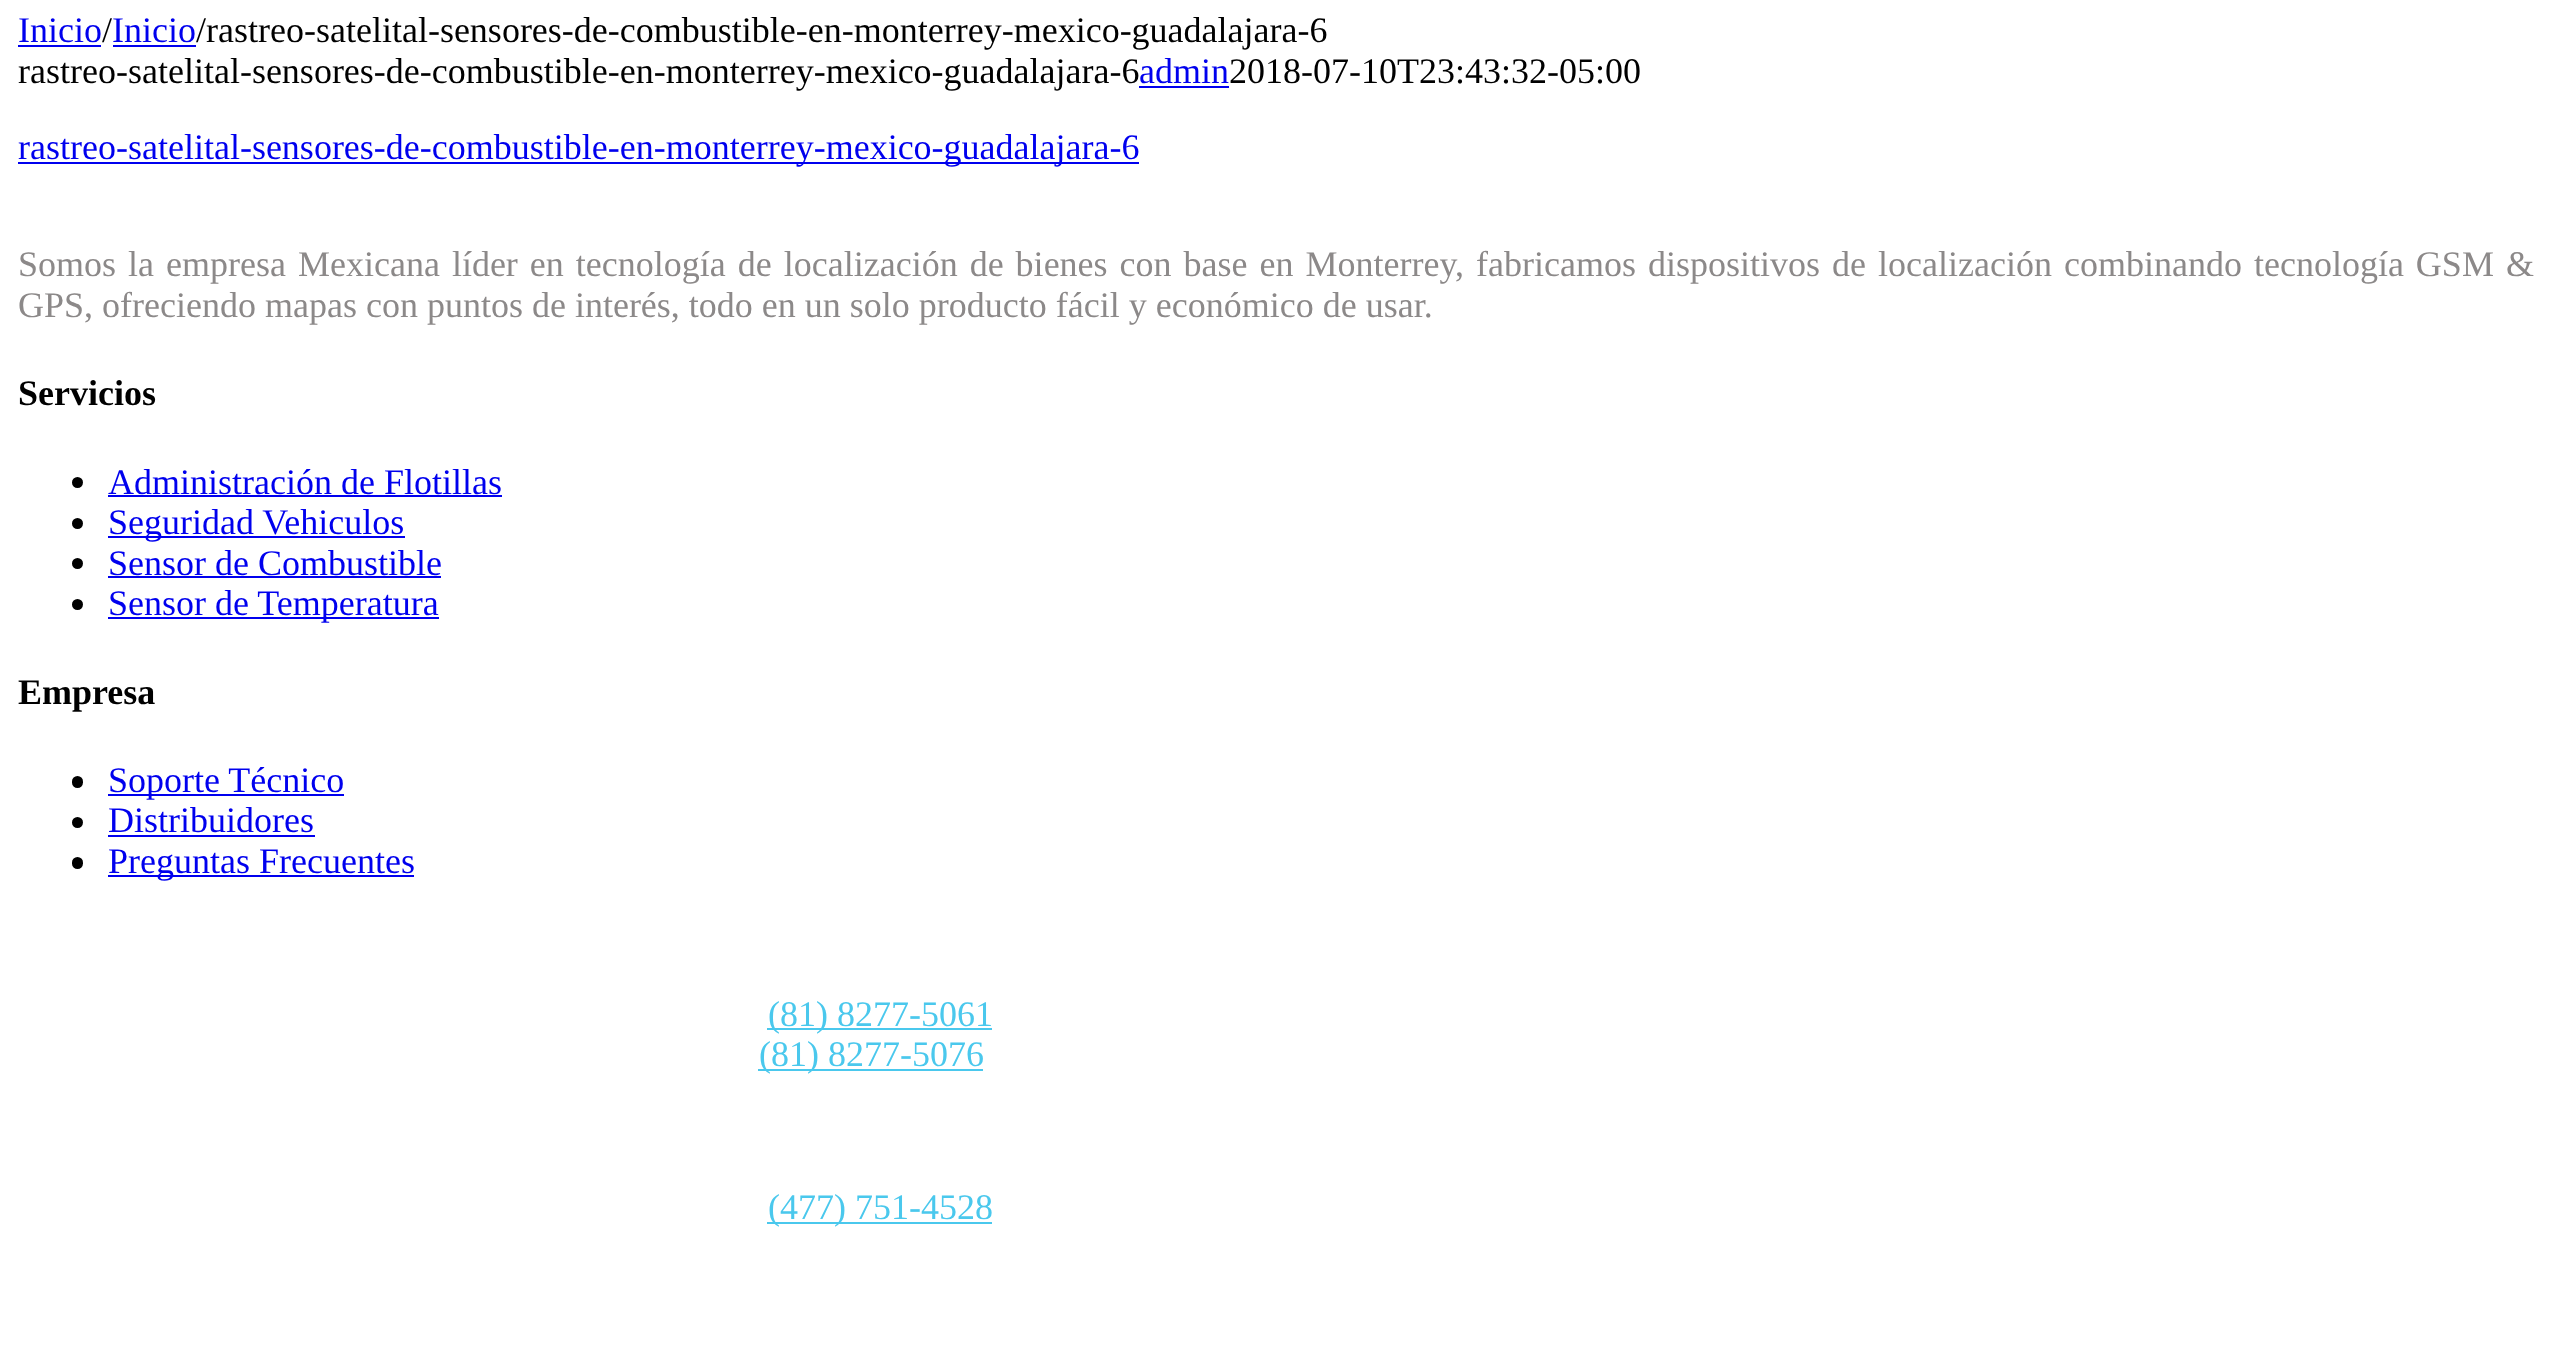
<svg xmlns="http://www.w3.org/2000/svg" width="2550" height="1354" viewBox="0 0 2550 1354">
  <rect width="100%" height="100%" fill="rgb(255,255,255)"/>
  <text x="18" y="42" font-family="Liberation Serif" font-size="36" fill="rgb(0,0,238)">Inicio</text>
  <rect x="18" y="45" width="83" height="2" fill="rgb(0,0,238)"/>
  <text x="102" y="42" font-family="Liberation Serif" font-size="36" fill="rgb(0,0,0)">/</text>
  <text x="112" y="42" font-family="Liberation Serif" font-size="36" fill="rgb(0,0,238)">Inicio</text>
  <rect x="113" y="45" width="83" height="2" fill="rgb(0,0,238)"/>
  <g font-family="Liberation Serif" font-size="36" fill="rgb(0,0,0)">
    <text x="196" y="42">/rastreo-satelital-sensores-de-combustible-en-monterrey-mexico-guadalajara-6</text>
    <text x="18" y="83">rastreo-satelital-sensores-de-combustible-en-monterrey-mexico-guadalajara-6</text>
  </g>
  <text x="1139" y="83" font-family="Liberation Serif" font-size="36" fill="rgb(0,0,238)">admin</text>
  <rect x="1139" y="86" width="90" height="2" fill="rgb(0,0,238)"/>
  <text x="1229" y="83" font-family="Liberation Serif" font-size="36" fill="rgb(0,0,0)">2018-07-10T23:43:32-05:00</text>
  <rect x="18" y="162" width="1121" height="2" fill="rgb(0,0,238)"/>
  <text x="18" y="159" font-family="Liberation Serif" font-size="36" fill="rgb(0,0,238)">rastreo-satelital-sensores-de-combustible-en-monterrey-mexico-guadalajara-6</text>
  <g font-family="Liberation Serif" font-size="36" fill="rgb(140,137,137)">
    <text>
      <tspan x="18" y="276" word-spacing="3">Somos la empresa Mexicana líder en tecnología de localización de bienes con base en Monterrey, fabricamos dispositivos de localización combinando tecnología GSM &amp;</tspan>
      <tspan x="18" y="317">GPS, ofreciendo mapas con puntos de interés, todo en un solo producto fácil y económico de usar.</tspan>
    </text>
  </g>
  <text x="18" y="405" font-family="Liberation Serif" font-size="36" font-weight="bold" fill="rgb(0,0,0)">Servicios</text>
  <circle cx="77.5" cy="482.5" r="5.5" fill="rgb(0,0,0)"/>
  <text x="108" y="494" font-family="Liberation Serif" font-size="36" fill="rgb(0,0,238)">Administración de Flotillas</text>
  <rect x="108" y="495" width="394" height="2" fill="rgb(0,0,238)"/>
  <circle cx="77.5" cy="523.5" r="5.5" fill="rgb(0,0,0)"/>
  <rect x="108" y="536" width="297" height="2" fill="rgb(0,0,238)"/>
  <text x="108" y="534" font-family="Liberation Serif" font-size="36" fill="rgb(0,0,238)">Seguridad Vehiculos</text>
  <circle cx="77.5" cy="563.5" r="5.5" fill="rgb(0,0,0)"/>
  <text x="108" y="575" font-family="Liberation Serif" font-size="36" fill="rgb(0,0,238)">Sensor de Combustible</text>
  <rect x="108" y="576" width="333" height="2" fill="rgb(0,0,238)"/>
  <circle cx="77.5" cy="604.5" r="5.5" fill="rgb(0,0,0)"/>
  <rect x="108" y="617" width="331" height="2" fill="rgb(0,0,238)"/>
  <text x="108" y="615" font-family="Liberation Serif" font-size="36" fill="rgb(0,0,238)">Sensor de Temperatura</text>
  <text x="18" y="704" font-family="Liberation Serif" font-size="36" font-weight="bold" fill="rgb(0,0,0)">Empresa</text>
  <rect x="72" y="776" width="11" height="12" rx="5.5" fill="rgb(0,0,0)"/>
  <rect x="108" y="794" width="236" height="2" fill="rgb(0,0,238)"/>
  <text x="108" y="792" font-family="Liberation Serif" font-size="36" fill="rgb(0,0,238)">Soporte Técnico</text>
  <circle cx="77.5" cy="822.5" r="5.5" fill="rgb(0,0,0)"/>
  <text x="108" y="832" font-family="Liberation Serif" font-size="36" fill="rgb(0,0,238)">Distribuidores</text>
  <rect x="108" y="835" width="207" height="2" fill="rgb(0,0,238)"/>
  <rect x="72" y="857" width="11" height="12" rx="5.5" fill="rgb(0,0,0)"/>
  <rect x="108" y="875" width="306" height="2" fill="rgb(0,0,238)"/>
  <text x="108" y="873" font-family="Liberation Serif" font-size="36" fill="rgb(0,0,238)">Preguntas Frecuentes</text>
  <rect x="767" y="1028" width="225" height="2" fill="rgb(74,200,237)"/>
  <text x="768" y="1026" font-family="Liberation Serif" font-size="36" fill="rgb(74,200,237)">(81) 8277-5061</text>
  <rect x="758" y="1069" width="225" height="2" fill="rgb(74,200,237)"/>
  <text x="759" y="1066" font-family="Liberation Serif" font-size="36" fill="rgb(74,200,237)">(81) 8277-5076</text>
  <rect x="767" y="1222" width="225" height="2" fill="rgb(74,200,237)"/>
  <text x="768" y="1219" font-family="Liberation Serif" font-size="36" fill="rgb(74,200,237)">(477) 751-4528</text>
</svg>
